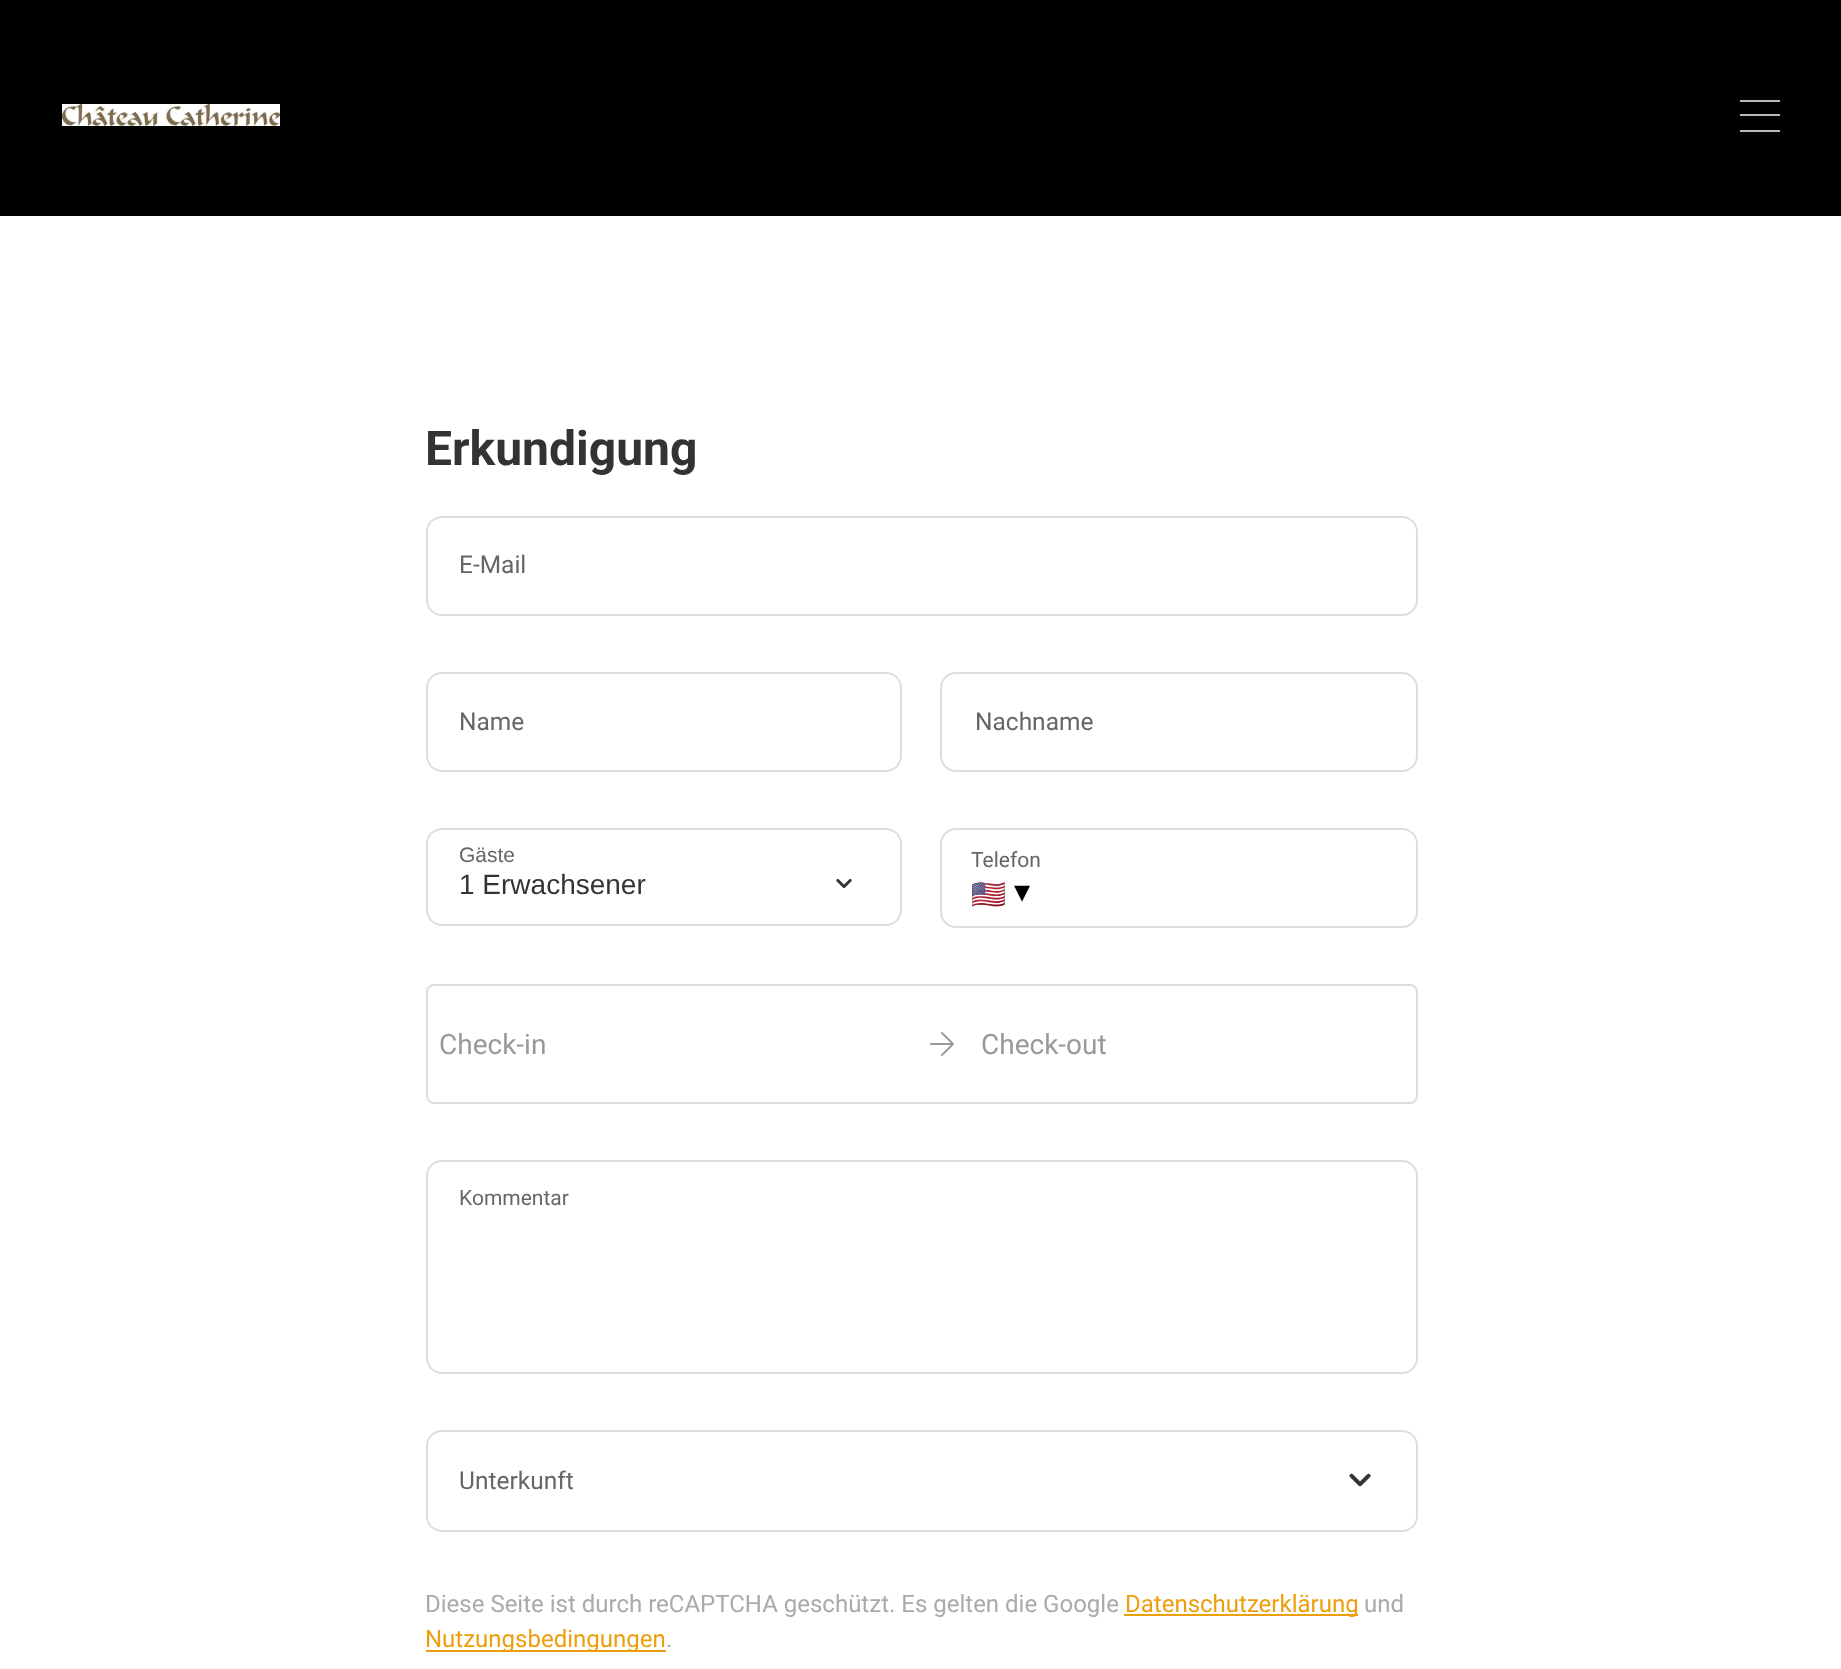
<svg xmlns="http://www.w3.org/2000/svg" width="1841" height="1669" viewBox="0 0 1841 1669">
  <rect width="100%" height="100%" fill="rgb(255,255,255)"/>
  <rect x="0" y="0" width="1841" height="216" fill="rgb(0,0,0)"/>
  <image x="62" y="104" width="218" height="22" href="pic1.png"/>
  <rect x="1740" y="100" width="40" height="2" fill="rgb(187,187,187)"/>
  <rect x="1740" y="114" width="40" height="2" fill="rgb(187,187,187)"/>
  <rect x="1740" y="130" width="40" height="2" fill="rgb(187,187,187)"/>
  <text x="425" y="465" font-family="Roboto" font-size="48" font-weight="bold" fill="rgb(51,51,51)">Erkundigung</text>
  <rect x="427" y="517" width="990" height="98" rx="15" fill="none" stroke="rgb(221,221,221)" stroke-width="2"/>
  <text x="459" y="573" font-family="Roboto" font-size="24.5" fill="rgb(102,102,102)">E-Mail</text>
  <rect x="427" y="673" width="474" height="98" rx="15" fill="none" stroke="rgb(221,221,221)" stroke-width="2"/>
  <text x="459" y="730" font-family="Roboto" font-size="24.5" fill="rgb(102,102,102)">Name</text>
  <rect x="941" y="673" width="476" height="98" rx="15" fill="none" stroke="rgb(221,221,221)" stroke-width="2"/>
  <text x="975" y="730" font-family="Roboto" font-size="24.5" fill="rgb(102,102,102)">Nachname</text>
  <rect x="427" y="829" width="474" height="96" rx="15" fill="none" stroke="rgb(221,221,221)" stroke-width="2"/>
  <text x="459" y="862" font-family="Liberation Sans" font-size="21" fill="rgb(102,102,102)">Gäste</text>
  <text x="459" y="894" font-family="Liberation Sans" font-size="28" fill="rgb(51,51,51)">1 Erwachsener</text>
  <image x="836" y="879" width="16" height="9" href="pic2.png"/>
  <rect x="941" y="829" width="476" height="98" rx="15" fill="none" stroke="rgb(221,221,221)" stroke-width="2"/>
  <text x="971" y="867" font-family="Roboto" font-size="21" fill="rgb(102,102,102)">Telefon</text>
  <text x="971" y="904" font-family="Noto Color Emoji" font-size="28" fill="rgb(0,0,0)">🇺🇸</text>
  <text x="1014" y="902" font-family="DejaVu Sans" font-size="32" fill="rgb(0,0,0)">▾</text>
  <rect x="427" y="985" width="990" height="118" rx="7" fill="none" stroke="rgb(221,221,221)" stroke-width="2"/>
  <text x="439" y="1054" font-family="Roboto" font-size="28" fill="rgb(153,153,153)">Check-in</text>
  <image x="930" y="1032" width="24" height="24" href="pic3.png"/>
  <text x="981" y="1054" font-family="Roboto" font-size="28" fill="rgb(153,153,153)">Check-out</text>
  <rect x="427" y="1161" width="990" height="212" rx="15" fill="none" stroke="rgb(221,221,221)" stroke-width="2"/>
  <text x="459" y="1205" font-family="Roboto" font-size="21" fill="rgb(102,102,102)">Kommentar</text>
  <rect x="427" y="1431" width="990" height="100" rx="15" fill="none" stroke="rgb(221,221,221)" stroke-width="2"/>
  <text x="459" y="1489" font-family="Roboto" font-size="24.5" fill="rgb(102,102,102)">Unterkunft</text>
  <image x="1349" y="1473" width="22" height="14" href="pic4.png"/>
  <text x="425" y="1612" font-family="Roboto" font-size="24" fill="rgb(170,170,170)">Diese Seite ist durch reCAPTCHA geschützt. Es gelten die Google</text>
  <rect x="1124" y="1614" width="234" height="2" fill="rgb(237,158,12)"/>
  <text x="1125" y="1612" font-family="Roboto" font-size="24" fill="rgb(237,158,12)">Datenschutzerklärung</text>
  <text x="1364" y="1612" font-family="Roboto" font-size="24" fill="rgb(170,170,170)">und</text>
  <rect x="426" y="1650" width="240" height="2" fill="rgb(237,158,12)"/>
  <text x="425" y="1647" font-family="Roboto" font-size="24" fill="rgb(237,158,12)">Nutzungsbedingungen</text>
  <text x="666" y="1647" font-family="Roboto" font-size="24" fill="rgb(170,170,170)">.</text>
</svg>
